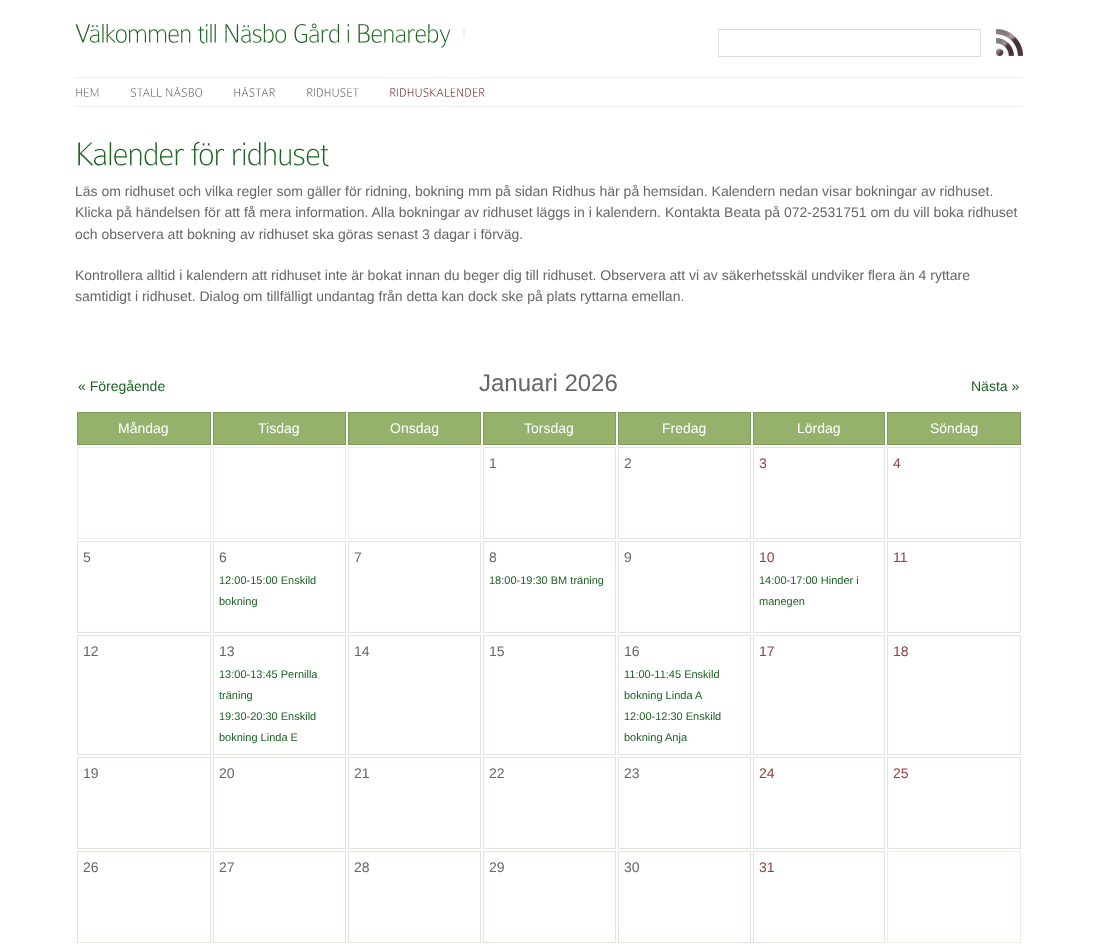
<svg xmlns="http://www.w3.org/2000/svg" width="1097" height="951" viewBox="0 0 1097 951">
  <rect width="100%" height="100%" fill="rgb(255,255,255)"/>
  <image x="75" y="24" width="116" height="19" href="pic1.png"/>
  <image x="198" y="24" width="18" height="20" href="pic2.png"/>
  <image x="225" y="24" width="62" height="19" href="pic3.png"/>
  <image x="294" y="23" width="46" height="20" href="pic4.png"/>
  <image x="347" y="24" width="2" height="19" href="pic5.png"/>
  <image x="358" y="24" width="93" height="24" href="pic6.png"/>
  <rect x="463" y="29" width="2" height="8" fill="rgb(238,238,238)"/>
  <rect x="718.5" y="29.5" width="262" height="27" fill="none" stroke="rgb(221,221,221)"/>
  <image x="996" y="29" width="27" height="27" href="pic7.png"/>
  <rect x="75" y="77" width="948" height="1" fill="rgb(238,238,238)"/>
  <rect x="75" y="106" width="948" height="1" fill="rgb(238,238,238)"/>
  <image x="76" y="88" width="23" height="9" href="pic8.png"/>
  <image x="131" y="88" width="31" height="9" href="pic9.png"/>
  <image x="166" y="87" width="37" height="10" href="pic10.png"/>
  <image x="234" y="87" width="41" height="10" href="pic11.png"/>
  <image x="307" y="88" width="52" height="9" href="pic12.png"/>
  <image x="390" y="88" width="95" height="9" href="pic13.png"/>
  <image x="78" y="142" width="106" height="24" href="pic14.png"/>
  <image x="191" y="141" width="34" height="25" href="pic15.png"/>
  <image x="233" y="142" width="96" height="25" href="pic16.png"/>
  <g font-family="Liberation Sans" font-size="14" fill="rgb(102,102,102)">
    <text>
      <tspan x="75" y="196">Läs om ridhuset och vilka regler som gäller för ridning, bokning mm på sidan Ridhus här på hemsidan. Kalendern nedan visar bokningar av ridhuset.</tspan>
      <tspan x="75" y="217">Klicka på händelsen för att få mera information. Alla bokningar av ridhuset läggs in i kalendern. Kontakta Beata på 072-2531751 om du vill boka ridhuset</tspan>
      <tspan x="75" y="239">och observera att bokning av ridhuset ska göras senast 3 dagar i förväg.</tspan>
    </text>
    <text>
      <tspan x="75" y="280">Kontrollera alltid i kalendern att ridhuset inte är bokat innan du beger dig till ridhuset. Observera att vi av säkerhetsskäl undviker flera än 4 ryttare</tspan>
      <tspan x="75" y="301">samtidigt i ridhuset. Dialog om tillfälligt undantag från detta kan dock ske på plats ryttarna emellan.</tspan>
    </text>
  </g>
  <text x="78" y="391" font-family="Liberation Sans" font-size="14" fill="rgb(27,98,33)">« Föregående</text>
  <text x="479" y="391" font-family="Liberation Sans" font-size="24" fill="rgb(102,102,102)">Januari 2026</text>
  <text x="971" y="391" font-family="Liberation Sans" font-size="14" fill="rgb(27,98,33)">Nästa »</text>
  <rect x="77.5" y="412.5" width="133" height="32" fill="rgb(148,178,108)" stroke="rgb(129,155,94)"/>
  <text x="118" y="433" font-family="Liberation Sans" font-size="14" fill="rgb(255,255,255)">Måndag</text>
  <rect x="213.5" y="412.5" width="132" height="32" fill="rgb(148,178,108)" stroke="rgb(129,155,94)"/>
  <text x="258" y="433" font-family="Liberation Sans" font-size="14" fill="rgb(255,255,255)">Tisdag</text>
  <rect x="348.5" y="412.5" width="132" height="32" fill="rgb(148,178,108)" stroke="rgb(129,155,94)"/>
  <text x="390" y="433" font-family="Liberation Sans" font-size="14" fill="rgb(255,255,255)">Onsdag</text>
  <rect x="483.5" y="412.5" width="132" height="32" fill="rgb(148,178,108)" stroke="rgb(129,155,94)"/>
  <text x="524" y="433" font-family="Liberation Sans" font-size="14" fill="rgb(255,255,255)">Torsdag</text>
  <rect x="618.5" y="412.5" width="132" height="32" fill="rgb(148,178,108)" stroke="rgb(129,155,94)"/>
  <text x="662" y="433" font-family="Liberation Sans" font-size="14" fill="rgb(255,255,255)">Fredag</text>
  <rect x="753.5" y="412.5" width="131" height="32" fill="rgb(148,178,108)" stroke="rgb(129,155,94)"/>
  <text x="797" y="433" font-family="Liberation Sans" font-size="14" fill="rgb(255,255,255)">Lördag</text>
  <rect x="887.5" y="412.5" width="133" height="32" fill="rgb(148,178,108)" stroke="rgb(129,155,94)"/>
  <text x="930" y="433" font-family="Liberation Sans" font-size="14" fill="rgb(255,255,255)">Söndag</text>
  <rect x="77.5" y="447.5" width="133" height="91" fill="none" stroke="rgb(233,240,232)"/>
  <rect x="213.5" y="447.5" width="132" height="91" fill="none" stroke="rgb(233,240,232)"/>
  <rect x="348.5" y="447.5" width="132" height="91" fill="none" stroke="rgb(233,240,232)"/>
  <rect x="483.5" y="447.5" width="132" height="91" fill="none" stroke="rgb(223,230,222)"/>
  <text x="489" y="468" font-family="Liberation Sans" font-size="14" fill="rgb(102,102,102)">1</text>
  <rect x="618.5" y="447.5" width="132" height="91" fill="none" stroke="rgb(223,230,222)"/>
  <text x="624" y="468" font-family="Liberation Sans" font-size="14" fill="rgb(102,102,102)">2</text>
  <rect x="753.5" y="447.5" width="131" height="91" fill="none" stroke="rgb(223,230,222)"/>
  <text x="759" y="468" font-family="Liberation Sans" font-size="14" fill="rgb(150,59,59)">3</text>
  <rect x="887.5" y="447.5" width="133" height="91" fill="none" stroke="rgb(223,230,222)"/>
  <text x="893" y="468" font-family="Liberation Sans" font-size="14" fill="rgb(150,59,59)">4</text>
  <rect x="77.5" y="541.5" width="133" height="91" fill="none" stroke="rgb(223,230,222)"/>
  <text x="83" y="562" font-family="Liberation Sans" font-size="14" fill="rgb(102,102,102)">5</text>
  <rect x="213.5" y="541.5" width="132" height="91" fill="none" stroke="rgb(223,230,222)"/>
  <text x="219" y="562" font-family="Liberation Sans" font-size="14" fill="rgb(102,102,102)">6</text>
  <g font-family="Liberation Sans" font-size="11" fill="rgb(27,98,33)">
    <text>
      <tspan x="219" y="584">12:00-15:00 Enskild</tspan>
      <tspan x="219" y="605">bokning</tspan>
    </text>
  </g>
  <rect x="348.5" y="541.5" width="132" height="91" fill="none" stroke="rgb(223,230,222)"/>
  <text x="354" y="562" font-family="Liberation Sans" font-size="14" fill="rgb(102,102,102)">7</text>
  <rect x="483.5" y="541.5" width="132" height="91" fill="none" stroke="rgb(223,230,222)"/>
  <text x="489" y="562" font-family="Liberation Sans" font-size="14" fill="rgb(102,102,102)">8</text>
  <text x="489" y="584" font-family="Liberation Sans" font-size="11" fill="rgb(27,98,33)">18:00-19:30 BM träning</text>
  <rect x="618.5" y="541.5" width="132" height="91" fill="none" stroke="rgb(223,230,222)"/>
  <text x="624" y="562" font-family="Liberation Sans" font-size="14" fill="rgb(102,102,102)">9</text>
  <rect x="753.5" y="541.5" width="131" height="91" fill="none" stroke="rgb(223,230,222)"/>
  <text x="759" y="562" font-family="Liberation Sans" font-size="14" fill="rgb(150,59,59)">10</text>
  <g font-family="Liberation Sans" font-size="11" fill="rgb(27,98,33)">
    <text>
      <tspan x="759" y="584">14:00-17:00 Hinder i</tspan>
      <tspan x="759" y="605">manegen</tspan>
    </text>
  </g>
  <rect x="887.5" y="541.5" width="133" height="91" fill="none" stroke="rgb(223,230,222)"/>
  <text x="893" y="562" font-family="Liberation Sans" font-size="14" fill="rgb(150,59,59)">11</text>
  <rect x="77.5" y="635.5" width="133" height="119" fill="none" stroke="rgb(223,230,222)"/>
  <text x="83" y="656" font-family="Liberation Sans" font-size="14" fill="rgb(102,102,102)">12</text>
  <rect x="213.5" y="635.5" width="132" height="119" fill="none" stroke="rgb(223,230,222)"/>
  <text x="219" y="656" font-family="Liberation Sans" font-size="14" fill="rgb(102,102,102)">13</text>
  <g font-family="Liberation Sans" font-size="11" fill="rgb(27,98,33)">
    <text>
      <tspan x="219" y="678">13:00-13:45 Pernilla</tspan>
      <tspan x="219" y="699">träning</tspan>
      <tspan x="219" y="720">19:30-20:30 Enskild</tspan>
      <tspan x="219" y="741">bokning Linda E</tspan>
    </text>
  </g>
  <rect x="348.5" y="635.5" width="132" height="119" fill="none" stroke="rgb(223,230,222)"/>
  <text x="354" y="656" font-family="Liberation Sans" font-size="14" fill="rgb(102,102,102)">14</text>
  <rect x="483.5" y="635.5" width="132" height="119" fill="none" stroke="rgb(223,230,222)"/>
  <text x="489" y="656" font-family="Liberation Sans" font-size="14" fill="rgb(102,102,102)">15</text>
  <rect x="618.5" y="635.5" width="132" height="119" fill="none" stroke="rgb(223,230,222)"/>
  <text x="624" y="656" font-family="Liberation Sans" font-size="14" fill="rgb(102,102,102)">16</text>
  <g font-family="Liberation Sans" font-size="11" fill="rgb(27,98,33)">
    <text>
      <tspan x="624" y="678">11:00-11:45 Enskild</tspan>
      <tspan x="624" y="699">bokning Linda A</tspan>
      <tspan x="624" y="720">12:00-12:30 Enskild</tspan>
      <tspan x="624" y="741">bokning Anja</tspan>
    </text>
  </g>
  <rect x="753.5" y="635.5" width="131" height="119" fill="none" stroke="rgb(223,230,222)"/>
  <text x="759" y="656" font-family="Liberation Sans" font-size="14" fill="rgb(150,59,59)">17</text>
  <rect x="887.5" y="635.5" width="133" height="119" fill="none" stroke="rgb(223,230,222)"/>
  <text x="893" y="656" font-family="Liberation Sans" font-size="14" fill="rgb(150,59,59)">18</text>
  <rect x="77.5" y="757.5" width="133" height="91" fill="none" stroke="rgb(223,230,222)"/>
  <text x="83" y="778" font-family="Liberation Sans" font-size="14" fill="rgb(102,102,102)">19</text>
  <rect x="213.5" y="757.5" width="132" height="91" fill="none" stroke="rgb(223,230,222)"/>
  <text x="219" y="778" font-family="Liberation Sans" font-size="14" fill="rgb(102,102,102)">20</text>
  <rect x="348.5" y="757.5" width="132" height="91" fill="none" stroke="rgb(223,230,222)"/>
  <text x="354" y="778" font-family="Liberation Sans" font-size="14" fill="rgb(102,102,102)">21</text>
  <rect x="483.5" y="757.5" width="132" height="91" fill="none" stroke="rgb(223,230,222)"/>
  <text x="489" y="778" font-family="Liberation Sans" font-size="14" fill="rgb(102,102,102)">22</text>
  <rect x="618.5" y="757.5" width="132" height="91" fill="none" stroke="rgb(223,230,222)"/>
  <text x="624" y="778" font-family="Liberation Sans" font-size="14" fill="rgb(102,102,102)">23</text>
  <rect x="753.5" y="757.5" width="131" height="91" fill="none" stroke="rgb(223,230,222)"/>
  <text x="759" y="778" font-family="Liberation Sans" font-size="14" fill="rgb(150,59,59)">24</text>
  <rect x="887.5" y="757.5" width="133" height="91" fill="none" stroke="rgb(223,230,222)"/>
  <text x="893" y="778" font-family="Liberation Sans" font-size="14" fill="rgb(150,59,59)">25</text>
  <rect x="77.5" y="851.5" width="133" height="91" fill="none" stroke="rgb(223,230,222)"/>
  <text x="83" y="872" font-family="Liberation Sans" font-size="14" fill="rgb(102,102,102)">26</text>
  <rect x="213.5" y="851.5" width="132" height="91" fill="none" stroke="rgb(223,230,222)"/>
  <text x="219" y="872" font-family="Liberation Sans" font-size="14" fill="rgb(102,102,102)">27</text>
  <rect x="348.5" y="851.5" width="132" height="91" fill="none" stroke="rgb(223,230,222)"/>
  <text x="354" y="872" font-family="Liberation Sans" font-size="14" fill="rgb(102,102,102)">28</text>
  <rect x="483.5" y="851.5" width="132" height="91" fill="none" stroke="rgb(223,230,222)"/>
  <text x="489" y="872" font-family="Liberation Sans" font-size="14" fill="rgb(102,102,102)">29</text>
  <rect x="618.5" y="851.5" width="132" height="91" fill="none" stroke="rgb(223,230,222)"/>
  <text x="624" y="872" font-family="Liberation Sans" font-size="14" fill="rgb(102,102,102)">30</text>
  <rect x="753.5" y="851.5" width="131" height="91" fill="none" stroke="rgb(223,230,222)"/>
  <text x="759" y="872" font-family="Liberation Sans" font-size="14" fill="rgb(150,59,59)">31</text>
  <rect x="887.5" y="851.5" width="133" height="91" fill="none" stroke="rgb(233,240,232)"/>
</svg>
